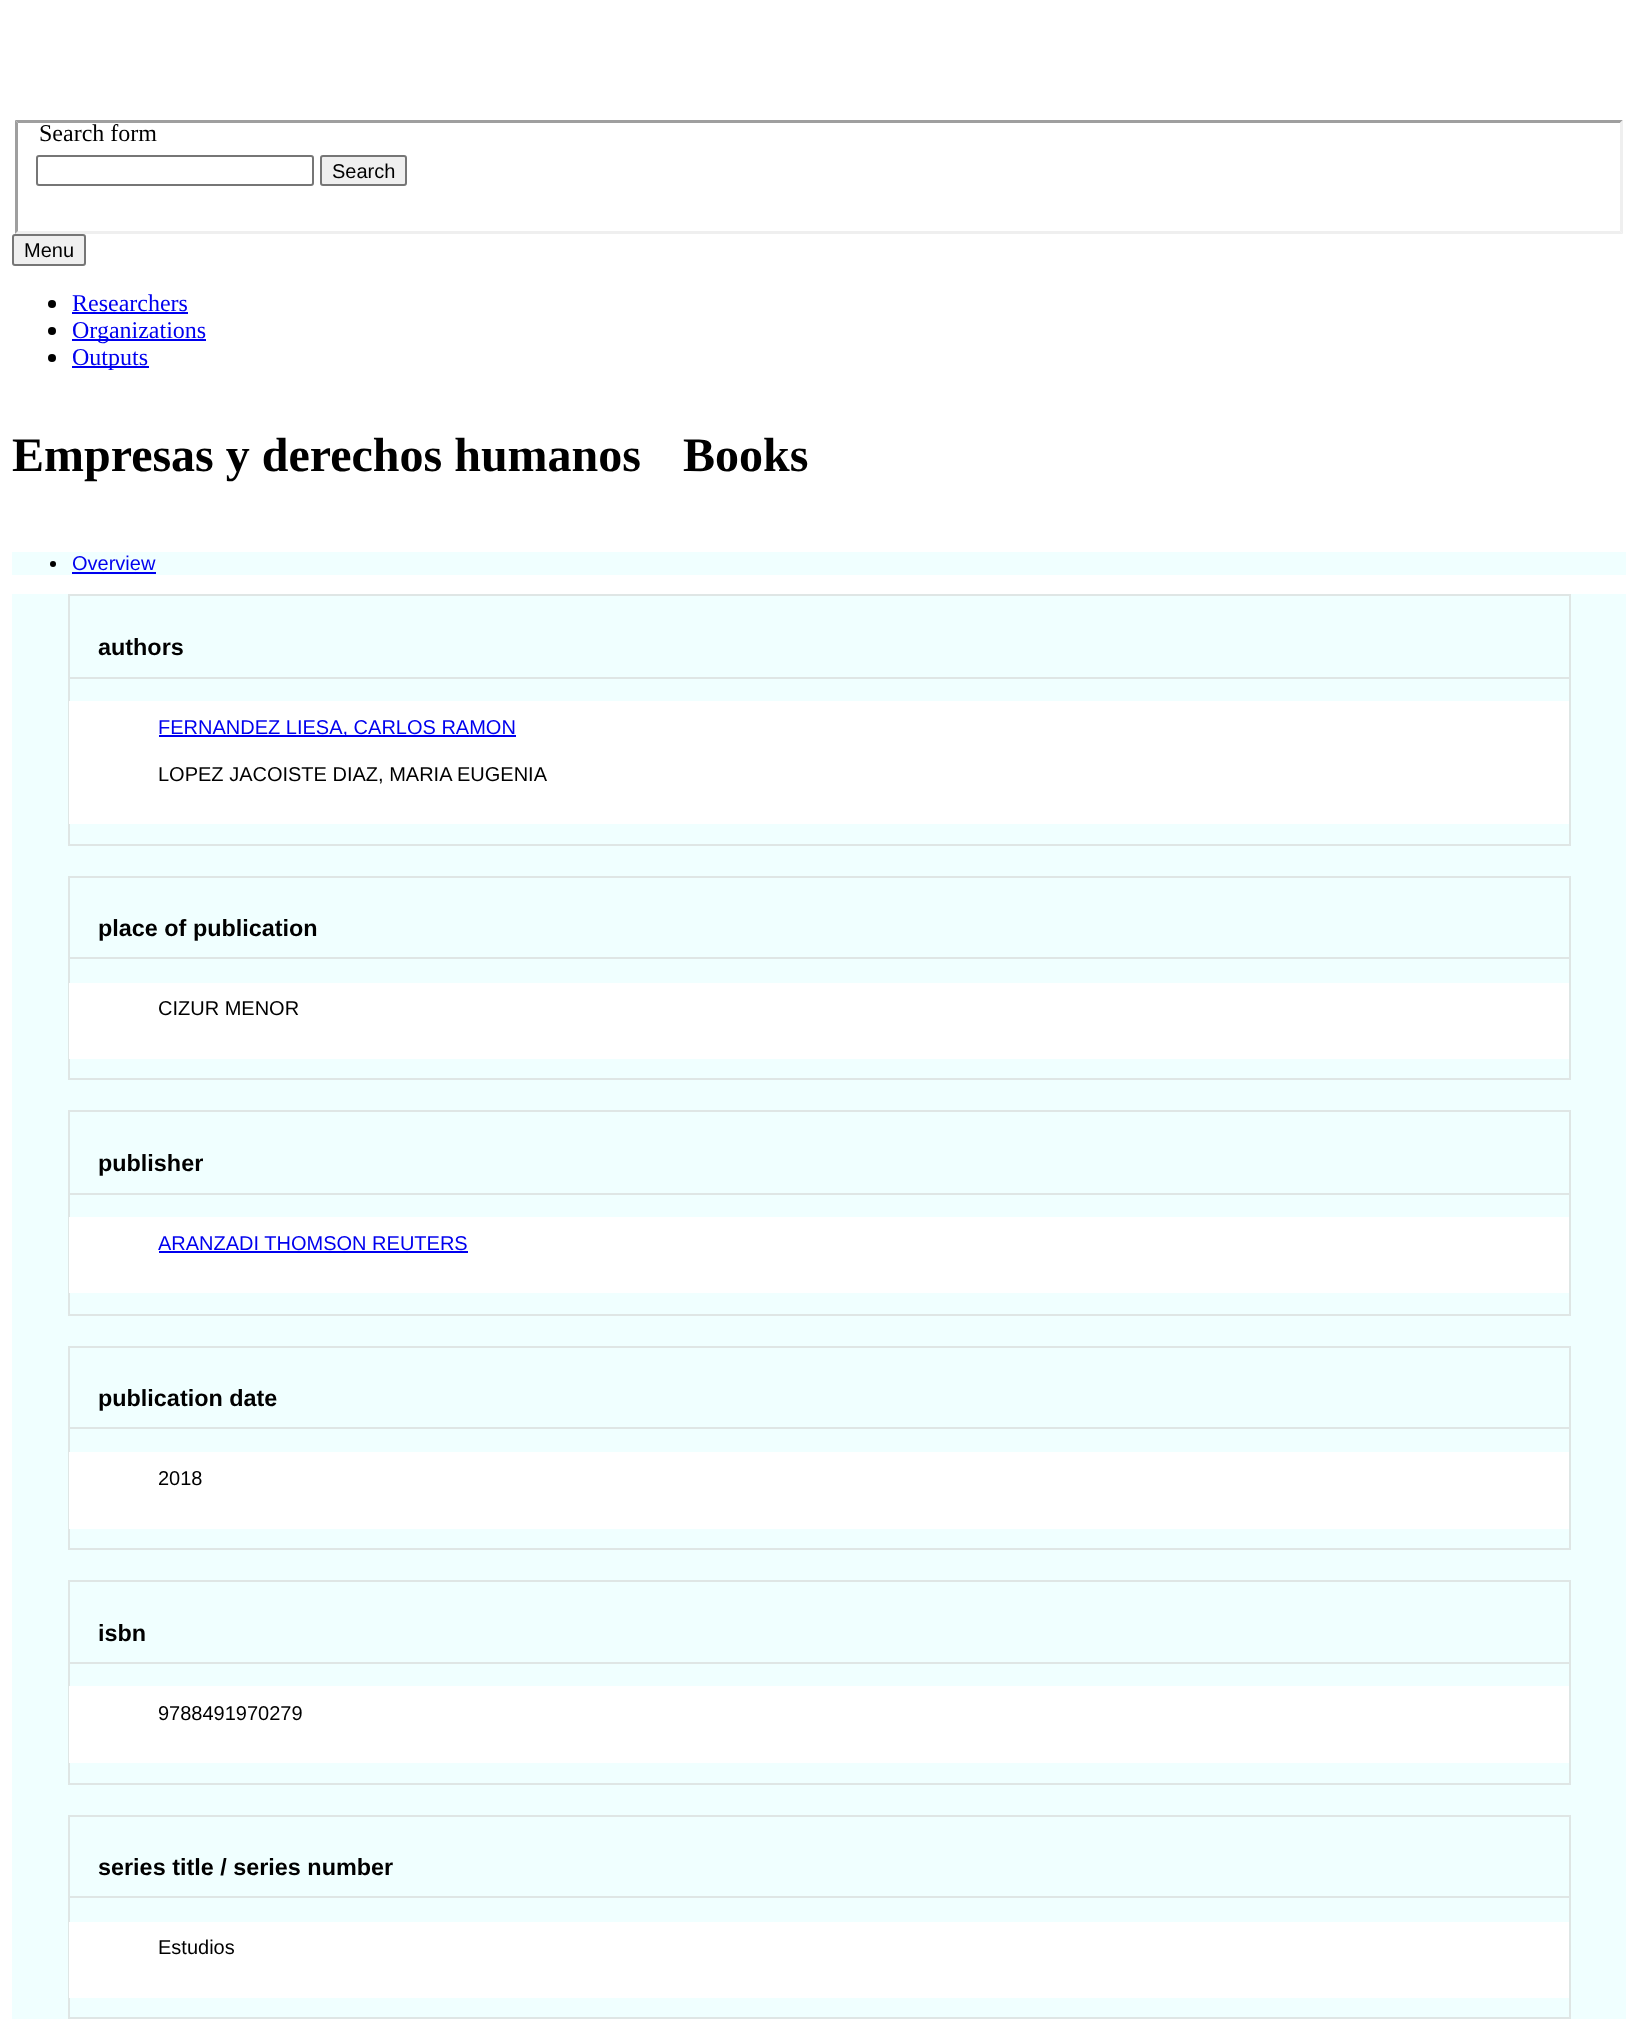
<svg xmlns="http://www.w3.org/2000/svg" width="1637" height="2019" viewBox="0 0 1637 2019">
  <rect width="100%" height="100%" fill="rgb(255,255,255)"/>
  <path d="M15 120H1623L1620 123H18Z" fill="rgb(159,159,159)"/>
  <path d="M1623 120V234L1620 231V123Z" fill="rgb(239,239,239)"/>
  <path d="M1623 234H15L18 231H1620Z" fill="rgb(239,239,239)"/>
  <path d="M15 234V120L18 123V231Z" fill="rgb(159,159,159)"/>
  <text x="39" y="141" font-family="Liberation Serif" font-size="24" fill="rgb(0,0,0)">Search form</text>
  <rect x="37" y="156" width="276" height="29" rx="2" fill="none" stroke="rgb(118,118,118)" stroke-width="2"/>
  <rect x="321" y="156" width="85" height="29" rx="2" fill="rgb(239,239,239)" stroke="rgb(118,118,118)" stroke-width="2"/>
  <text x="332" y="178" font-family="Liberation Sans" font-size="20" fill="rgb(0,0,0)">Search</text>
  <rect x="13" y="235" width="72" height="30" rx="2" fill="rgb(239,239,239)" stroke="rgb(118,118,118)" stroke-width="2"/>
  <text x="24" y="257" font-family="Liberation Sans" font-size="20" fill="rgb(0,0,0)">Menu</text>
  <circle cx="52" cy="304" r="4" fill="rgb(0,0,0)"/>
  <text x="72" y="311" font-family="Liberation Serif" font-size="24" fill="rgb(0,0,238)">Researchers</text>
  <rect x="72" y="312" width="116" height="2" fill="rgb(0,0,238)"/>
  <circle cx="52" cy="331" r="4" fill="rgb(0,0,0)"/>
  <rect x="72" y="339" width="134" height="2" fill="rgb(0,0,238)"/>
  <text x="72" y="338" font-family="Liberation Serif" font-size="24" fill="rgb(0,0,238)">Organizations</text>
  <circle cx="52" cy="358" r="4" fill="rgb(0,0,0)"/>
  <rect x="72" y="366" width="77" height="2" fill="rgb(0,0,238)"/>
  <text x="72" y="365" font-family="Liberation Serif" font-size="24" fill="rgb(0,0,238)">Outputs</text>
  <g font-family="Liberation Serif" font-size="48" font-weight="bold" fill="rgb(0,0,0)">
    <text x="12" y="471">Empresas y derechos humanos</text>
    <text x="683" y="471">Books</text>
  </g>
  <rect x="12" y="552" width="1614" height="23" fill="rgb(240,255,255)"/>
  <circle cx="53" cy="564" r="3" fill="rgb(0,0,0)"/>
  <text x="72" y="570" font-family="Liberation Sans" font-size="20" fill="rgb(0,0,238)">Overview</text>
  <rect x="72" y="572" width="84" height="2" fill="rgb(0,0,238)"/>
  <rect x="12" y="594" width="1614" height="1425" fill="rgb(240,255,255)"/>
  <rect x="69" y="595" width="1501" height="250" fill="none" stroke="rgb(223,230,229)" stroke-width="2"/>
  <rect x="69" y="677" width="1500" height="2" fill="rgb(223,230,229)"/>
  <text x="98" y="655" font-family="Liberation Sans" font-size="23.4" font-weight="bold" fill="rgb(0,0,0)">authors</text>
  <rect x="69" y="701" width="1500" height="123" fill="rgb(255,255,255)"/>
  <rect x="159" y="735" width="357" height="2" fill="rgb(0,0,238)"/>
  <text x="158" y="734" font-family="Liberation Sans" font-size="20" fill="rgb(0,0,238)">FERNANDEZ LIESA, CARLOS RAMON</text>
  <text x="158" y="781" font-family="Liberation Sans" font-size="20" fill="rgb(0,0,0)">LOPEZ JACOISTE DIAZ, MARIA EUGENIA</text>
  <rect x="69" y="877" width="1501" height="202" fill="none" stroke="rgb(223,230,229)" stroke-width="2"/>
  <rect x="69" y="957" width="1500" height="2" fill="rgb(223,230,229)"/>
  <text x="98" y="936" font-family="Liberation Sans" font-size="23.4" font-weight="bold" fill="rgb(0,0,0)">place of publication</text>
  <rect x="69" y="983" width="1500" height="76" fill="rgb(255,255,255)"/>
  <text x="158" y="1015" font-family="Liberation Sans" font-size="20" fill="rgb(0,0,0)">CIZUR MENOR</text>
  <rect x="69" y="1111" width="1501" height="204" fill="none" stroke="rgb(223,230,229)" stroke-width="2"/>
  <rect x="69" y="1193" width="1500" height="2" fill="rgb(223,230,229)"/>
  <text x="98" y="1171" font-family="Liberation Sans" font-size="23.4" font-weight="bold" fill="rgb(0,0,0)">publisher</text>
  <rect x="69" y="1217" width="1500" height="76" fill="rgb(255,255,255)"/>
  <text x="158" y="1250" font-family="Liberation Sans" font-size="20" fill="rgb(0,0,238)">ARANZADI THOMSON REUTERS</text>
  <rect x="159" y="1251" width="309" height="2" fill="rgb(0,0,238)"/>
  <rect x="69" y="1347" width="1501" height="202" fill="none" stroke="rgb(223,230,229)" stroke-width="2"/>
  <rect x="69" y="1427" width="1500" height="2" fill="rgb(223,230,229)"/>
  <text x="98" y="1406" font-family="Liberation Sans" font-size="23.4" font-weight="bold" fill="rgb(0,0,0)">publication date</text>
  <rect x="69" y="1452" width="1500" height="77" fill="rgb(255,255,255)"/>
  <text x="158" y="1485" font-family="Liberation Sans" font-size="20" fill="rgb(0,0,0)">2018</text>
  <rect x="69" y="1581" width="1501" height="203" fill="none" stroke="rgb(223,230,229)" stroke-width="2"/>
  <rect x="69" y="1662" width="1500" height="2" fill="rgb(223,230,229)"/>
  <text x="98" y="1641" font-family="Liberation Sans" font-size="23.4" font-weight="bold" fill="rgb(0,0,0)">isbn</text>
  <rect x="69" y="1686" width="1500" height="77" fill="rgb(255,255,255)"/>
  <text x="158" y="1720" font-family="Liberation Sans" font-size="20" fill="rgb(0,0,0)">9788491970279</text>
  <rect x="69" y="1816" width="1501" height="202" fill="none" stroke="rgb(223,230,229)" stroke-width="2"/>
  <rect x="69" y="1896" width="1500" height="2" fill="rgb(223,230,229)"/>
  <text x="98" y="1875" font-family="Liberation Sans" font-size="23.4" font-weight="bold" fill="rgb(0,0,0)">series title / series number</text>
  <rect x="69" y="1922" width="1500" height="76" fill="rgb(255,255,255)"/>
  <text x="158" y="1954" font-family="Liberation Sans" font-size="20" fill="rgb(0,0,0)">Estudios</text>
</svg>
